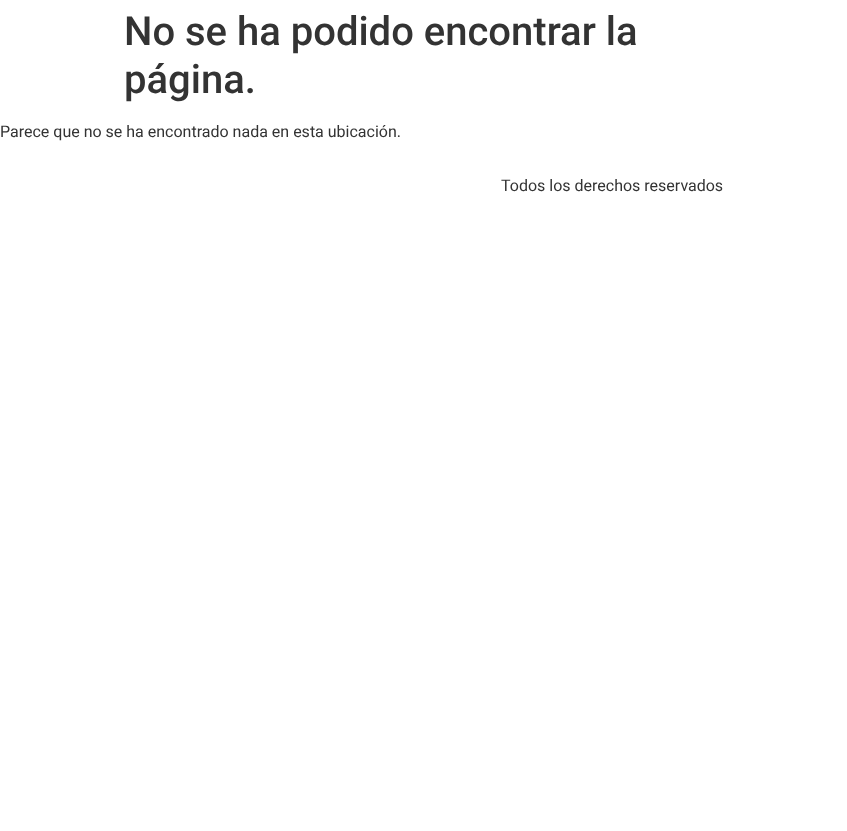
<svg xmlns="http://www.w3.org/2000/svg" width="847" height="831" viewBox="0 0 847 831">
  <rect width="100%" height="100%" fill="rgb(255,255,255)"/>
  <g font-family="Roboto" font-size="40" font-weight="500" fill="rgb(51,51,51)">
    <text>
      <tspan x="124" y="45">No se ha podido encontrar la</tspan>
      <tspan x="124" y="93">página.</tspan>
    </text>
  </g>
  <g font-family="Roboto" font-size="16" fill="rgb(51,51,51)">
    <text x="0" y="137">Parece que no se ha encontrado nada en esta ubicación.</text>
    <text x="501" y="191">Todos los derechos reservados</text>
  </g>
</svg>
